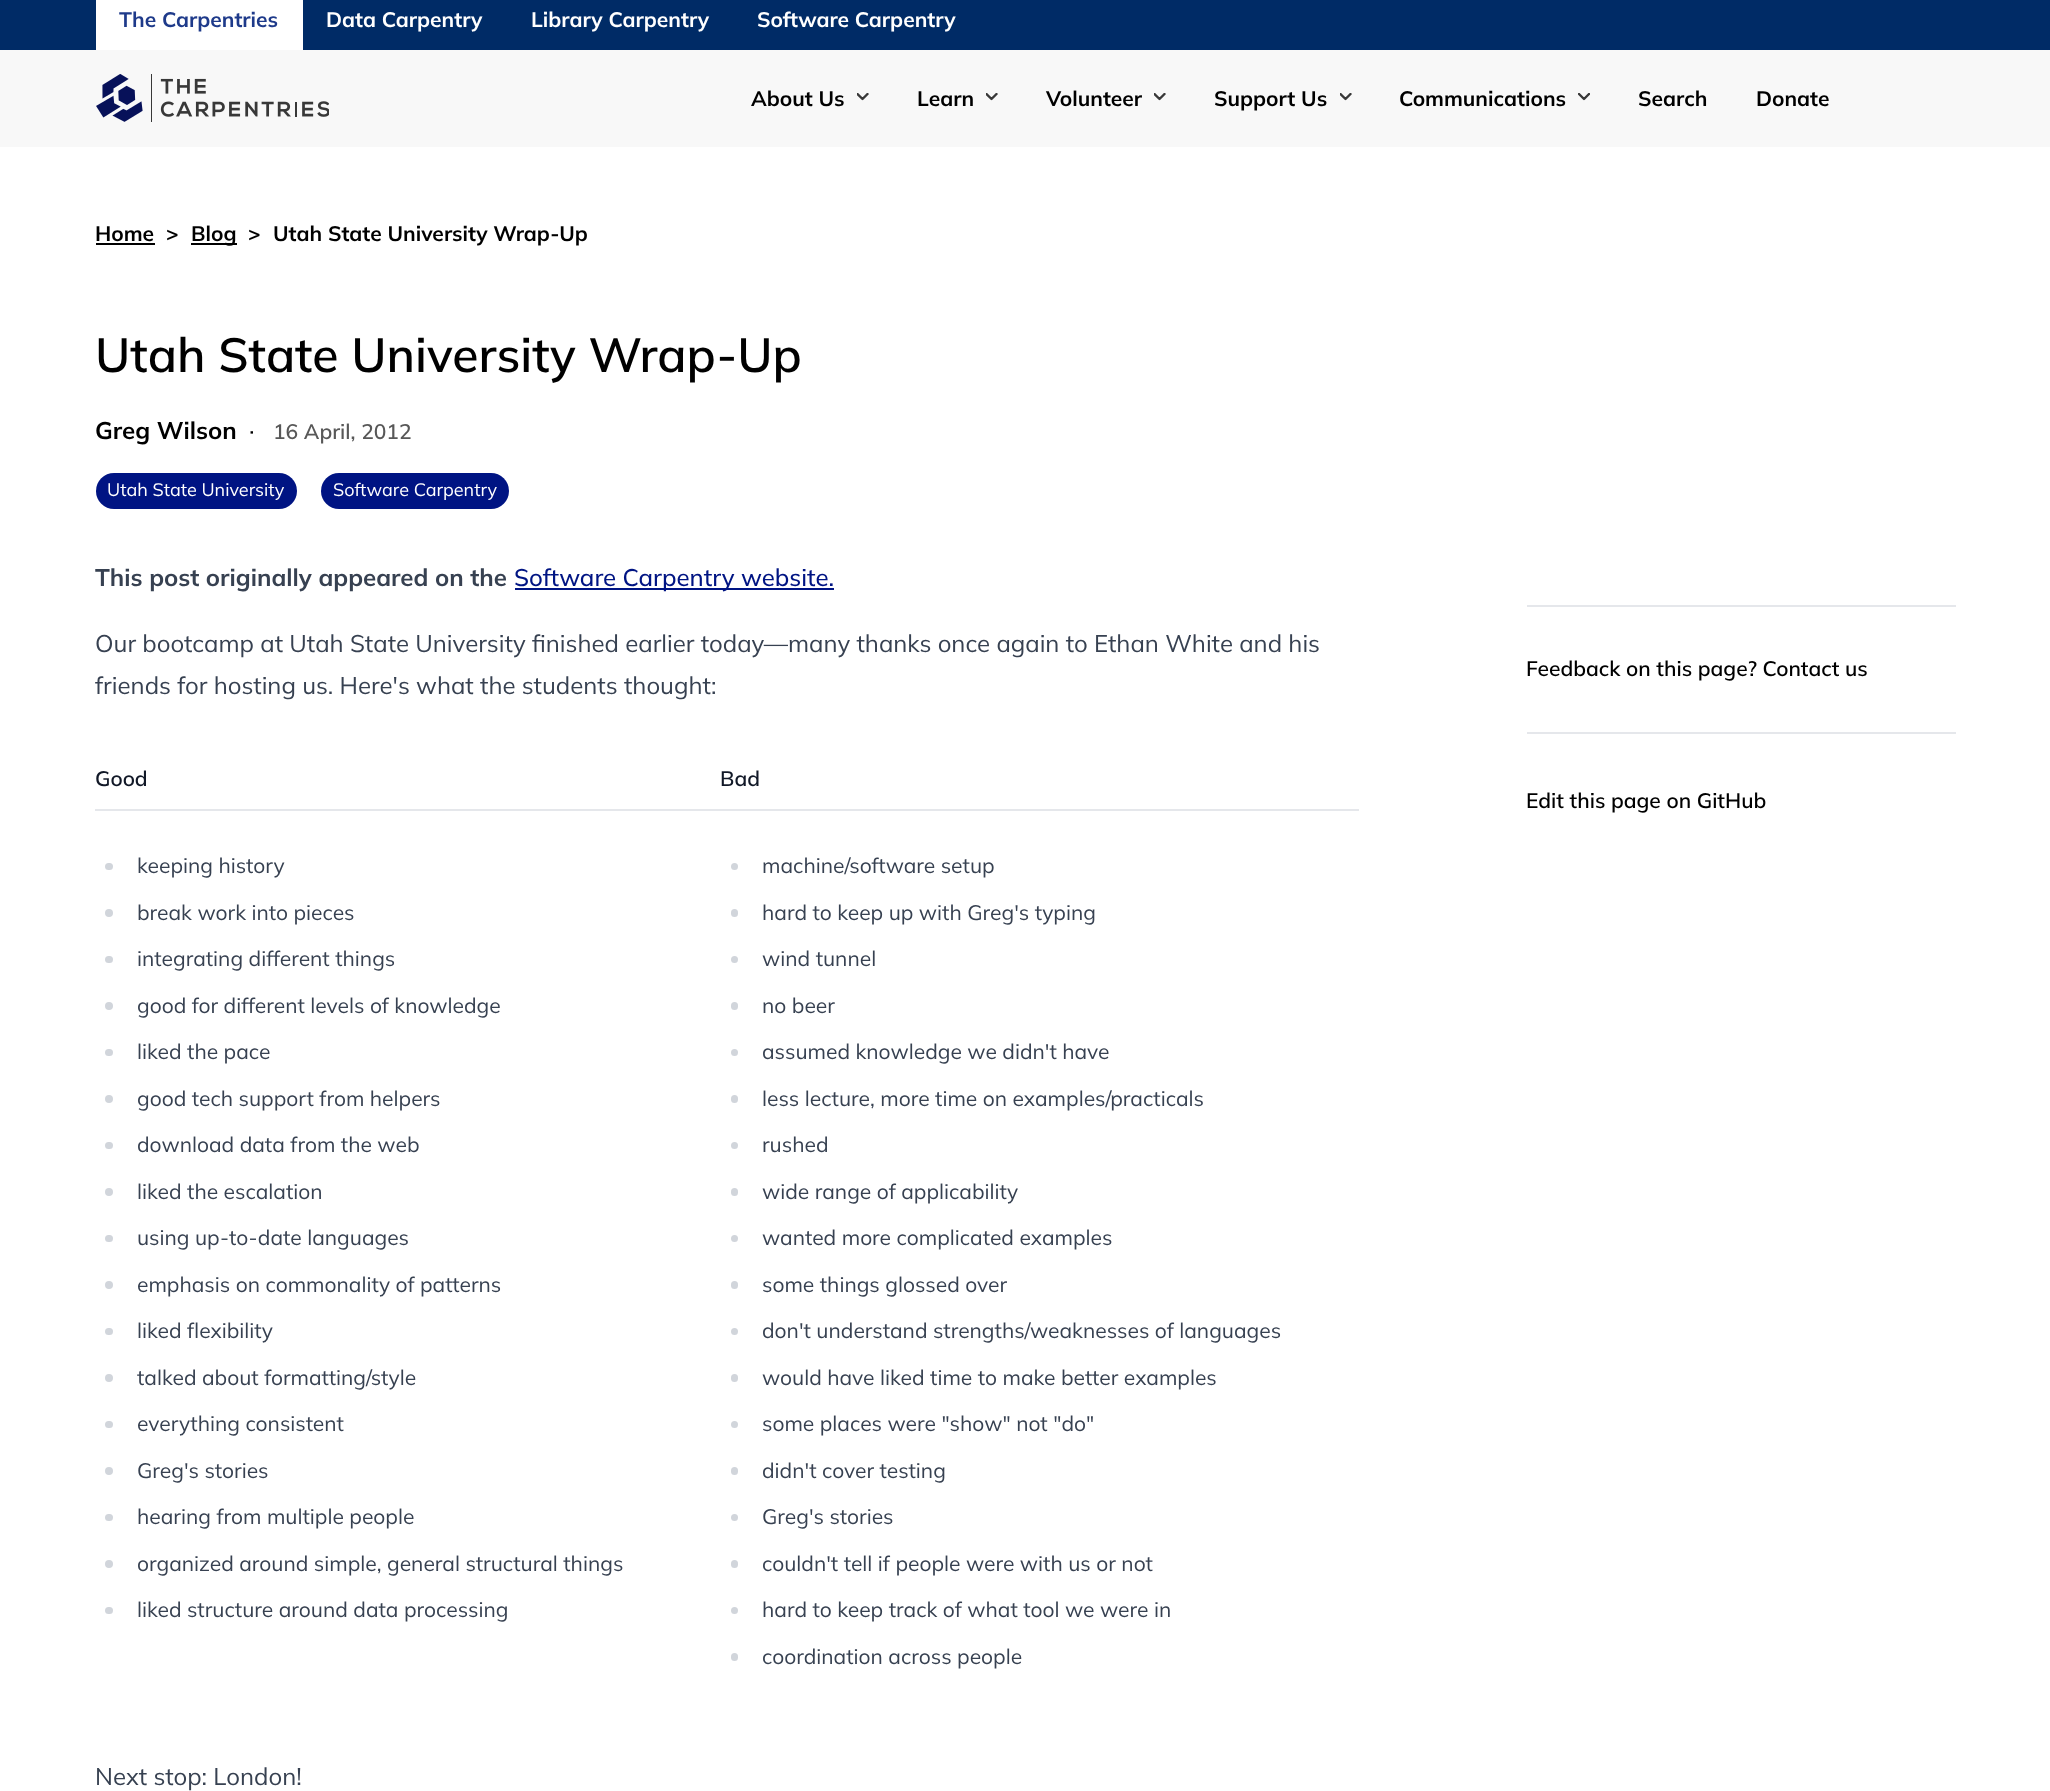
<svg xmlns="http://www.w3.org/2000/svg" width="2050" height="1791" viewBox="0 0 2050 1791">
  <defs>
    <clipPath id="clip1"><rect x="857" y="93" width="12" height="8"/></clipPath>
    <clipPath id="clip2"><rect x="986" y="93" width="12" height="8"/></clipPath>
    <clipPath id="clip3"><rect x="1154" y="93" width="12" height="8"/></clipPath>
    <clipPath id="clip4"><rect x="1340" y="93" width="12" height="8"/></clipPath>
    <clipPath id="clip5"><rect x="1578" y="93" width="12" height="8"/></clipPath>
  </defs>
  <rect width="100%" height="100%" fill="rgb(255,255,255)"/>
  <rect x="0" y="0" width="2050" height="50" fill="rgb(0,43,102)"/>
  <rect x="96" y="0" width="207" height="50" fill="rgb(255,255,255)"/>
  <text x="119" y="27" font-family="Mulish" font-size="21" font-weight="bold" fill="rgb(30,58,138)">The Carpentries</text>
  <g font-family="Mulish" font-size="21" font-weight="bold" fill="rgb(255,255,255)">
    <text x="326" y="27">Data Carpentry</text>
    <text x="531" y="27">Library Carpentry</text>
    <text x="757" y="27">Software Carpentry</text>
  </g>
  <rect x="0" y="50" width="2050" height="97" fill="rgb(248,248,248)"/>
  <image x="96" y="74" width="233" height="48" href="pic1.png"/>
  <text x="751" y="106" font-family="Mulish" font-size="21" font-weight="bold" fill="rgb(0,0,0)">About Us</text>
  <g clip-path="url(#clip1)">
    <path d="M857.5 94L862.5 99L867.5 94" fill="none" stroke="rgb(56,56,56)" stroke-width="2.4" stroke-linecap="round" stroke-linejoin="round"/>
  </g>
  <text x="917" y="106" font-family="Mulish" font-size="21" font-weight="bold" fill="rgb(0,0,0)">Learn</text>
  <g clip-path="url(#clip2)">
    <path d="M986.5 94L991.5 99L996.5 94" fill="none" stroke="rgb(56,56,56)" stroke-width="2.4" stroke-linecap="round" stroke-linejoin="round"/>
  </g>
  <text x="1046" y="106" font-family="Mulish" font-size="21" font-weight="bold" fill="rgb(0,0,0)">Volunteer</text>
  <g clip-path="url(#clip3)">
    <path d="M1154.5 94L1159.5 99L1164.5 94" fill="none" stroke="rgb(56,56,56)" stroke-width="2.4" stroke-linecap="round" stroke-linejoin="round"/>
  </g>
  <text x="1214" y="106" font-family="Mulish" font-size="21" font-weight="bold" fill="rgb(0,0,0)">Support Us</text>
  <g clip-path="url(#clip4)">
    <path d="M1340.5 94L1345.5 99L1350.5 94" fill="none" stroke="rgb(56,56,56)" stroke-width="2.4" stroke-linecap="round" stroke-linejoin="round"/>
  </g>
  <text x="1399" y="106" font-family="Mulish" font-size="21" font-weight="bold" fill="rgb(0,0,0)">Communications</text>
  <g clip-path="url(#clip5)">
    <path d="M1579 94L1584 99L1589 94" fill="none" stroke="rgb(56,56,56)" stroke-width="2.4" stroke-linecap="round" stroke-linejoin="round"/>
  </g>
  <g font-family="Mulish" font-size="21" font-weight="bold" fill="rgb(0,0,0)">
    <text x="1638" y="106">Search</text>
    <text x="1756" y="106">Donate</text>
    <text x="95" y="241">Home</text>
  </g>
  <rect x="96" y="243" width="59" height="2" fill="rgb(0,0,0)"/>
  <text x="166" y="241" font-family="Mulish" font-size="21" font-weight="bold" fill="rgb(0,0,0)">&gt;</text>
  <rect x="191" y="243" width="46" height="2" fill="rgb(0,0,0)"/>
  <g font-family="Mulish" font-size="21" font-weight="bold" fill="rgb(0,0,0)">
    <text x="191" y="241">Blog</text>
    <text x="248" y="241">&gt;</text>
    <text x="273" y="241">Utah State University Wrap-Up</text>
  </g>
  <text x="95" y="372" font-family="Mulish" font-size="48" font-weight="600" fill="rgb(0,0,0)">Utah State University Wrap-Up</text>
  <text x="95" y="439" font-family="Mulish" font-size="24" font-weight="bold" fill="rgb(0,0,0)">Greg Wilson</text>
  <text x="249" y="439" font-family="Mulish" font-size="24" fill="rgb(0,0,0)">·</text>
  <text x="273" y="439" font-family="Mulish" font-size="21" font-weight="600" fill="rgb(88,88,88)">16 April, 2012</text>
  <rect x="96" y="473" width="201" height="36" rx="18" fill="rgb(0,20,131)"/>
  <text x="107" y="496" font-family="Mulish" font-size="18" fill="rgb(255,255,255)">Utah State University</text>
  <rect x="321" y="473" width="188" height="36" rx="18" fill="rgb(0,20,131)"/>
  <text x="333" y="496" font-family="Mulish" font-size="18" fill="rgb(255,255,255)">Software Carpentry</text>
  <text x="95" y="586" font-family="Mulish" font-size="24" font-weight="bold" fill="rgb(55,65,81)">This post originally appeared on the</text>
  <rect x="515" y="588" width="319" height="2" fill="rgb(0,20,131)"/>
  <text x="514" y="586" font-family="Mulish" font-size="24" font-weight="500" fill="rgb(0,20,131)">Software Carpentry website.</text>
  <g font-family="Mulish" font-size="24" fill="rgb(55,65,81)">
    <text>
      <tspan x="95" y="652">Our bootcamp at Utah State University finished earlier today—many thanks once again to Ethan White and his</tspan>
      <tspan x="95" y="694">friends for hosting us. Here's what the students thought:</tspan>
    </text>
  </g>
  <rect x="95" y="809" width="1264" height="2" fill="rgb(229,231,235)"/>
  <g font-family="Mulish" font-size="21" font-weight="600" fill="rgb(17,24,39)">
    <text x="95" y="786">Good</text>
    <text x="720" y="786">Bad</text>
  </g>
  <rect x="105" y="863" width="8" height="7" rx="3.5" fill="rgb(209,213,219)"/>
  <text x="137" y="873" font-family="Mulish" font-size="21" fill="rgb(55,65,81)">keeping history</text>
  <circle cx="109" cy="913" r="4" fill="rgb(209,213,219)"/>
  <text x="137" y="920" font-family="Mulish" font-size="21" fill="rgb(55,65,81)">break work into pieces</text>
  <rect x="105" y="956" width="8" height="7" rx="3.5" fill="rgb(209,213,219)"/>
  <text x="137" y="966" font-family="Mulish" font-size="21" fill="rgb(55,65,81)">integrating different things</text>
  <circle cx="109" cy="1006" r="4" fill="rgb(209,213,219)"/>
  <text x="137" y="1013" font-family="Mulish" font-size="21" fill="rgb(55,65,81)">good for different levels of knowledge</text>
  <rect x="105" y="1049" width="8" height="7" rx="3.5" fill="rgb(209,213,219)"/>
  <text x="137" y="1059" font-family="Mulish" font-size="21" fill="rgb(55,65,81)">liked the pace</text>
  <circle cx="109" cy="1099" r="4" fill="rgb(209,213,219)"/>
  <text x="137" y="1106" font-family="Mulish" font-size="21" fill="rgb(55,65,81)">good tech support from helpers</text>
  <rect x="105" y="1142" width="8" height="7" rx="3.5" fill="rgb(209,213,219)"/>
  <text x="137" y="1152" font-family="Mulish" font-size="21" fill="rgb(55,65,81)">download data from the web</text>
  <circle cx="109" cy="1192" r="4" fill="rgb(209,213,219)"/>
  <text x="137" y="1199" font-family="Mulish" font-size="21" fill="rgb(55,65,81)">liked the escalation</text>
  <rect x="105" y="1235" width="8" height="7" rx="3.5" fill="rgb(209,213,219)"/>
  <text x="137" y="1245" font-family="Mulish" font-size="21" fill="rgb(55,65,81)">using up-to-date languages</text>
  <circle cx="109" cy="1285" r="4" fill="rgb(209,213,219)"/>
  <text x="137" y="1292" font-family="Mulish" font-size="21" fill="rgb(55,65,81)">emphasis on commonality of patterns</text>
  <rect x="105" y="1328" width="8" height="7" rx="3.5" fill="rgb(209,213,219)"/>
  <text x="137" y="1338" font-family="Mulish" font-size="21" fill="rgb(55,65,81)">liked flexibility</text>
  <circle cx="109" cy="1378" r="4" fill="rgb(209,213,219)"/>
  <text x="137" y="1385" font-family="Mulish" font-size="21" fill="rgb(55,65,81)">talked about formatting/style</text>
  <rect x="105" y="1421" width="8" height="7" rx="3.5" fill="rgb(209,213,219)"/>
  <text x="137" y="1431" font-family="Mulish" font-size="21" fill="rgb(55,65,81)">everything consistent</text>
  <circle cx="109" cy="1471" r="4" fill="rgb(209,213,219)"/>
  <text x="137" y="1478" font-family="Mulish" font-size="21" fill="rgb(55,65,81)">Greg's stories</text>
  <rect x="105" y="1514" width="8" height="7" rx="3.5" fill="rgb(209,213,219)"/>
  <text x="137" y="1524" font-family="Mulish" font-size="21" fill="rgb(55,65,81)">hearing from multiple people</text>
  <circle cx="109" cy="1564" r="4" fill="rgb(209,213,219)"/>
  <text x="137" y="1571" font-family="Mulish" font-size="21" fill="rgb(55,65,81)">organized around simple, general structural things</text>
  <rect x="105" y="1607" width="8" height="7" rx="3.5" fill="rgb(209,213,219)"/>
  <text x="137" y="1617" font-family="Mulish" font-size="21" fill="rgb(55,65,81)">liked structure around data processing</text>
  <circle cx="734.5" cy="866.5" r="3.5" fill="rgb(209,213,219)"/>
  <text x="762" y="873" font-family="Mulish" font-size="21" fill="rgb(55,65,81)">machine/software setup</text>
  <rect x="731" y="909" width="7" height="8" rx="3.5" fill="rgb(209,213,219)"/>
  <text x="762" y="920" font-family="Mulish" font-size="21" fill="rgb(55,65,81)">hard to keep up with Greg's typing</text>
  <circle cx="734.5" cy="959.5" r="3.5" fill="rgb(209,213,219)"/>
  <text x="762" y="966" font-family="Mulish" font-size="21" fill="rgb(55,65,81)">wind tunnel</text>
  <rect x="731" y="1002" width="7" height="8" rx="3.5" fill="rgb(209,213,219)"/>
  <text x="762" y="1013" font-family="Mulish" font-size="21" fill="rgb(55,65,81)">no beer</text>
  <circle cx="734.5" cy="1052.5" r="3.5" fill="rgb(209,213,219)"/>
  <text x="762" y="1059" font-family="Mulish" font-size="21" fill="rgb(55,65,81)">assumed knowledge we didn't have</text>
  <rect x="731" y="1095" width="7" height="8" rx="3.5" fill="rgb(209,213,219)"/>
  <text x="762" y="1106" font-family="Mulish" font-size="21" fill="rgb(55,65,81)">less lecture, more time on examples/practicals</text>
  <circle cx="734.5" cy="1145.5" r="3.5" fill="rgb(209,213,219)"/>
  <text x="762" y="1152" font-family="Mulish" font-size="21" fill="rgb(55,65,81)">rushed</text>
  <rect x="731" y="1188" width="7" height="8" rx="3.5" fill="rgb(209,213,219)"/>
  <text x="762" y="1199" font-family="Mulish" font-size="21" fill="rgb(55,65,81)">wide range of applicability</text>
  <circle cx="734.5" cy="1238.5" r="3.5" fill="rgb(209,213,219)"/>
  <text x="762" y="1245" font-family="Mulish" font-size="21" fill="rgb(55,65,81)">wanted more complicated examples</text>
  <rect x="731" y="1281" width="7" height="8" rx="3.5" fill="rgb(209,213,219)"/>
  <text x="762" y="1292" font-family="Mulish" font-size="21" fill="rgb(55,65,81)">some things glossed over</text>
  <circle cx="734.5" cy="1331.5" r="3.5" fill="rgb(209,213,219)"/>
  <text x="762" y="1338" font-family="Mulish" font-size="21" fill="rgb(55,65,81)">don't understand strengths/weaknesses of languages</text>
  <rect x="731" y="1374" width="7" height="8" rx="3.5" fill="rgb(209,213,219)"/>
  <text x="762" y="1385" font-family="Mulish" font-size="21" fill="rgb(55,65,81)">would have liked time to make better examples</text>
  <circle cx="734.5" cy="1424.5" r="3.5" fill="rgb(209,213,219)"/>
  <text x="762" y="1431" font-family="Mulish" font-size="21" fill="rgb(55,65,81)">some places were "show" not "do"</text>
  <rect x="731" y="1467" width="7" height="8" rx="3.5" fill="rgb(209,213,219)"/>
  <text x="762" y="1478" font-family="Mulish" font-size="21" fill="rgb(55,65,81)">didn't cover testing</text>
  <circle cx="734.5" cy="1517.5" r="3.5" fill="rgb(209,213,219)"/>
  <text x="762" y="1524" font-family="Mulish" font-size="21" fill="rgb(55,65,81)">Greg's stories</text>
  <rect x="731" y="1560" width="7" height="8" rx="3.5" fill="rgb(209,213,219)"/>
  <text x="762" y="1571" font-family="Mulish" font-size="21" fill="rgb(55,65,81)">couldn't tell if people were with us or not</text>
  <circle cx="734.5" cy="1610.5" r="3.5" fill="rgb(209,213,219)"/>
  <text x="762" y="1617" font-family="Mulish" font-size="21" fill="rgb(55,65,81)">hard to keep track of what tool we were in</text>
  <rect x="731" y="1653" width="7" height="8" rx="3.5" fill="rgb(209,213,219)"/>
  <text x="762" y="1664" font-family="Mulish" font-size="21" fill="rgb(55,65,81)">coordination across people</text>
  <text x="95" y="1785" font-family="Mulish" font-size="24" fill="rgb(55,65,81)">Next stop: London!</text>
  <rect x="1527" y="605" width="429" height="2" fill="rgb(229,231,235)"/>
  <text x="1526" y="676" font-family="Mulish" font-size="21" font-weight="600" fill="rgb(0,0,0)">Feedback on this page? Contact us</text>
  <rect x="1527" y="732" width="429" height="2" fill="rgb(229,231,235)"/>
  <text x="1526" y="808" font-family="Mulish" font-size="21" font-weight="600" fill="rgb(0,0,0)">Edit this page on GitHub</text>
</svg>
